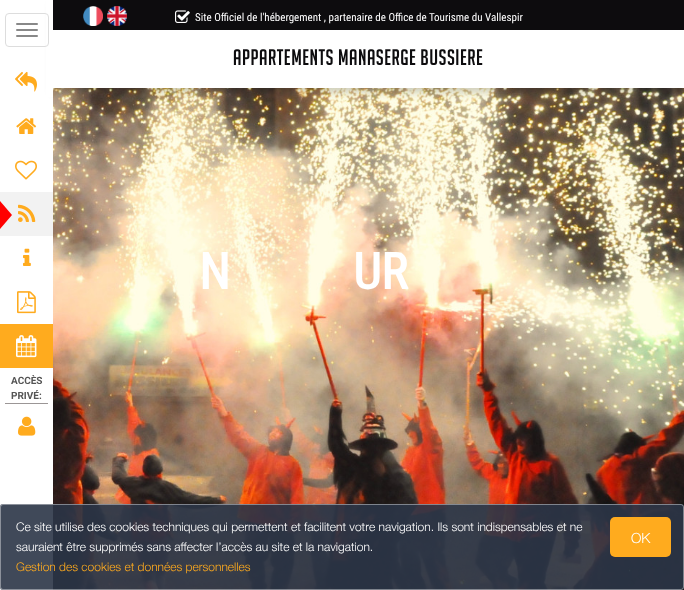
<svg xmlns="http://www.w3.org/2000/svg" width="684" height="590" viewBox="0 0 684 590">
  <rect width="100%" height="100%" fill="rgb(255,255,255)"/>
  <image x="53" y="88" width="631" height="502" href="pic4.png"/>
  <rect x="53" y="4" width="631" height="88" fill="rgba(0,0,0,0.2)" filter="blur(4px)"/>
  <rect x="53" y="30" width="631" height="58" fill="rgb(255,255,255)"/>
  <rect x="53" y="0" width="631" height="30" fill="rgb(13,12,14)"/>
  <image x="83" y="6" width="20" height="20" href="pic1.png"/>
  <image x="107" y="6" width="20" height="20" href="pic2.png"/>
  <image x="175" y="10" width="15" height="13" href="pic3.png"/>
  <text x="195" y="21" font-family="Roboto Condensed" font-size="11" fill="rgb(255,255,255)">Site Officiel de l'hébergement , partenaire de Office de Tourisme du Vallespir</text>
  <text x="233" y="65" font-family="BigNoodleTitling" font-size="22" letter-spacing="0.5" fill="rgb(13,12,14)">APPARTEMENTS MANASERGE BUSSIERE</text>
  <g font-family="Roboto Condensed" font-size="50" font-weight="bold" fill="rgb(255,255,255)">
    <text x="199" y="289">N</text>
    <text x="353" y="289">UR</text>
  </g>
  <rect x="0" y="504" width="684" height="86" rx="3" fill="rgba(43,53,71,0.9)"/>
  <rect x="0.5" y="504.5" width="683" height="85" rx="2.5" fill="none" stroke="rgba(255,255,255,0.4)"/>
  <text x="16" y="531" font-family="Helvetica Neue" font-size="12" font-weight="300" fill="rgb(255,255,255)">Ce site utilise des cookies techniques qui permettent et facilitent votre navigation. Ils sont indispensables et ne</text>
  <rect x="610" y="517" width="61" height="40" rx="5" fill="rgb(255,171,30)"/>
  <text x="631" y="543" font-family="Helvetica Neue" font-size="14" font-weight="300" fill="rgb(255,255,255)">OK</text>
  <text x="16" y="551" font-family="Helvetica Neue" font-size="12" font-weight="300" fill="rgb(255,255,255)">sauraient être supprimés sans affecter l’accès au site et la navigation.</text>
  <text x="16" y="571" font-family="Helvetica Neue" font-size="12" font-weight="300" fill="rgb(255,171,30)">Gestion des cookies et données personnelles</text>
  <rect x="46" y="0" width="7" height="97" fill="rgb(255,255,255)"/>
  <rect x="5.5" y="13.5" width="43" height="33" rx="3.5" fill="none" stroke="rgb(221,221,221)"/>
  <rect x="16" y="23" width="22" height="2" rx="1" fill="rgb(136,136,136)"/>
  <rect x="16" y="29" width="22" height="2" rx="1" fill="rgb(136,136,136)"/>
  <rect x="16" y="35" width="22" height="2" rx="1" fill="rgb(136,136,136)"/>
  <image x="15" y="71" width="22" height="21" href="pic5.png"/>
  <image x="16" y="118" width="21" height="16" href="pic6.png"/>
  <image x="15" y="160" width="22" height="20" href="pic7.png"/>
  <rect x="0" y="192" width="53" height="44" fill="rgb(242,242,242)"/>
  <path d="M0 229V201L12 215Z" fill="rgb(255,0,0)"/>
  <image x="18" y="204" width="18" height="18" href="pic8.png"/>
  <image x="23" y="248" width="8" height="18" href="pic9.png"/>
  <image x="17" y="291" width="19" height="23" href="pic10.png"/>
  <rect x="0" y="324" width="53" height="44" fill="rgb(255,171,30)"/>
  <image x="16" y="335" width="21" height="23" href="pic11.png"/>
  <rect x="5" y="403" width="43" height="1" fill="rgb(155,150,150)"/>
  <g font-family="Roboto" font-size="10" font-weight="bold" fill="rgb(85,85,85)">
    <text>
      <tspan x="11" y="384">ACCÈS</tspan>
      <tspan x="11" y="399">PRIVÉ:</tspan>
    </text>
  </g>
  <image x="18" y="416" width="18" height="20" href="pic12.png"/>
</svg>
